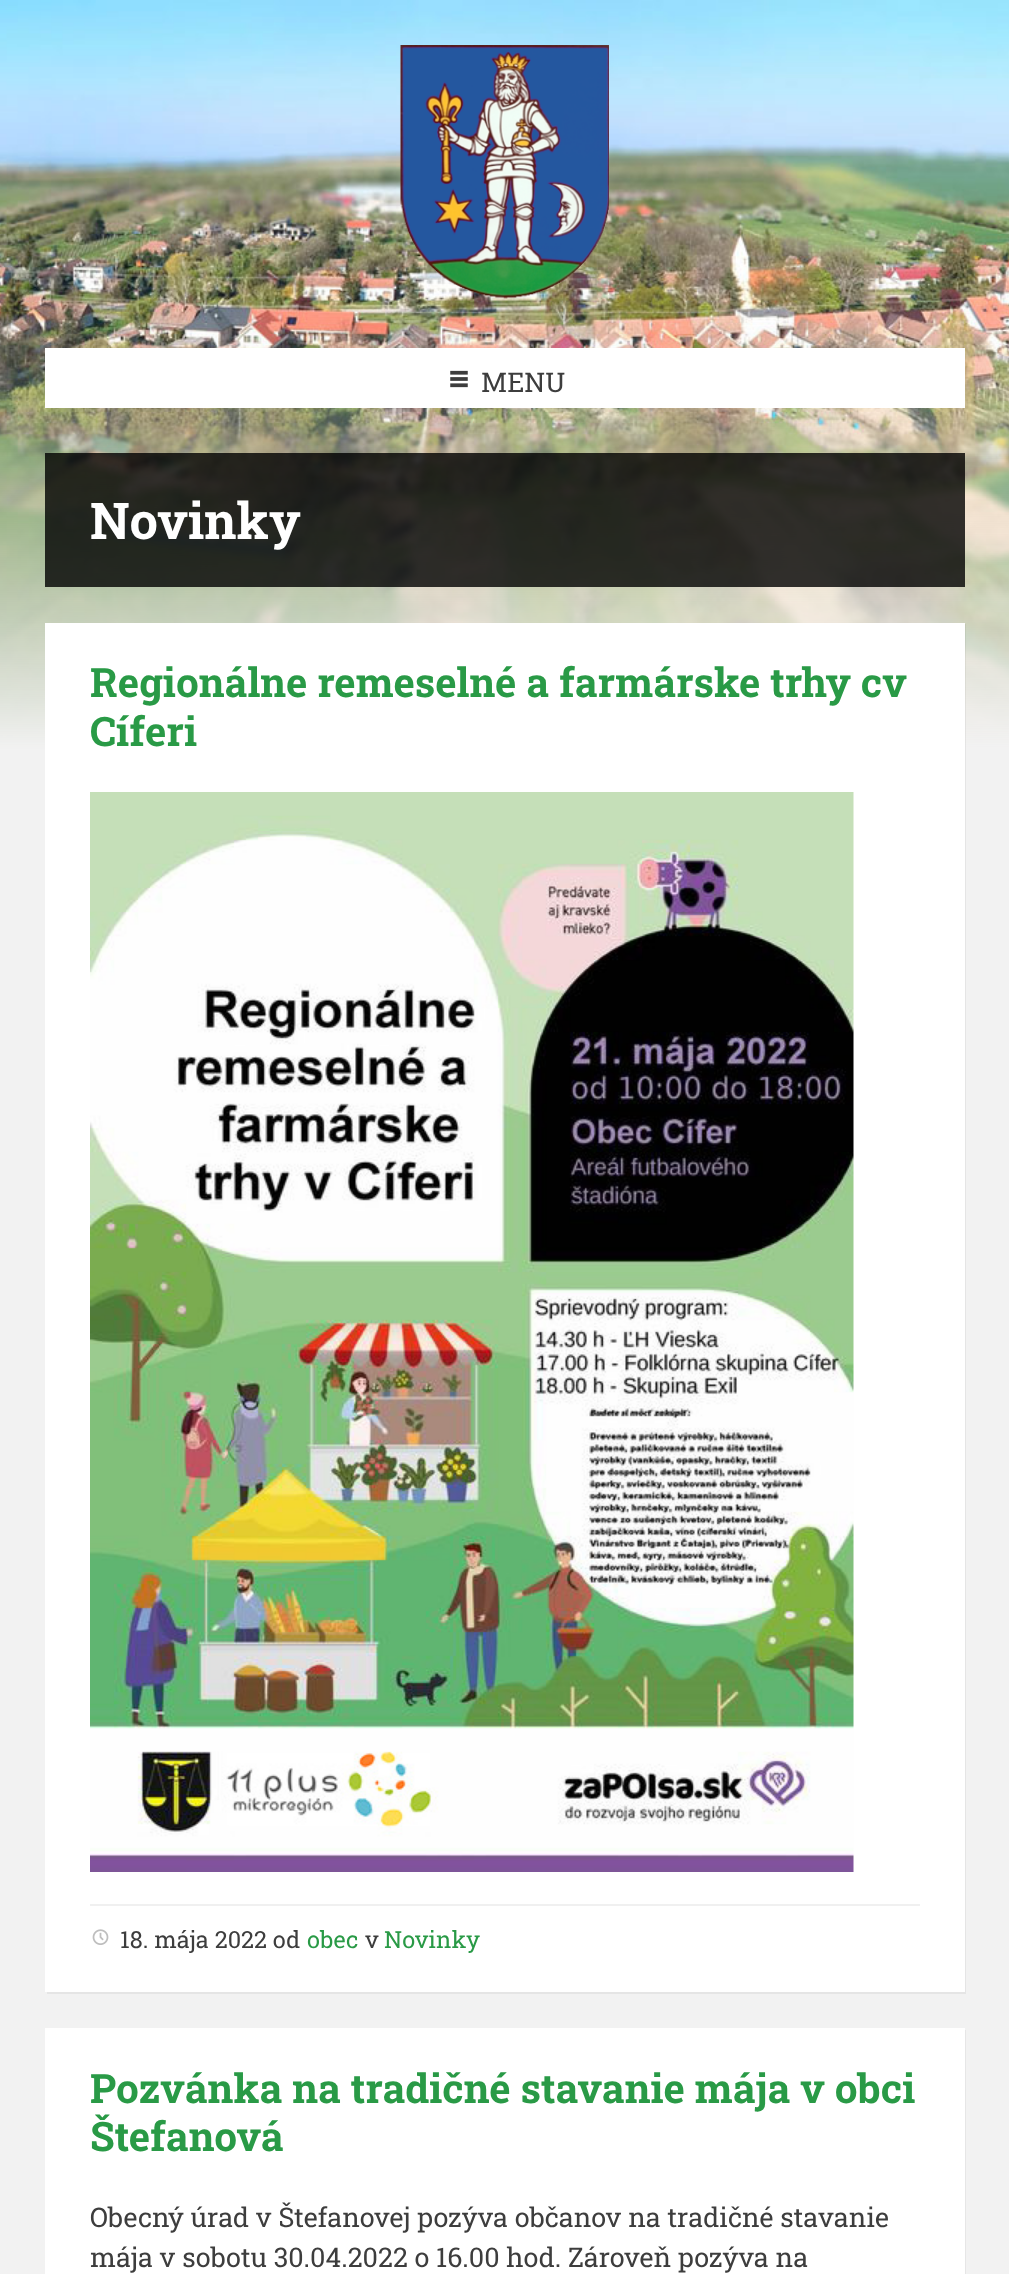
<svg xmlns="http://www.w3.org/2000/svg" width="1009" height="2274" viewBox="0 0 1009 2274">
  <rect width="100%" height="100%" fill="rgb(242,242,242)"/>
  <image x="0" y="0" width="1009" height="750" href="pic1.png"/>
  <image x="400" y="45" width="209" height="254" href="pic2.png"/>
  <rect x="45" y="348" width="920" height="60" fill="rgb(255,255,255)"/>
  <image x="450" y="370" width="18" height="18" href="pic3.png"/>
  <text x="481" y="392" font-family="Roboto Slab" font-size="27" fill="rgb(61,61,61)">MENU</text>
  <rect x="45" y="453" width="920" height="134" fill="rgba(0,0,0,0.8)"/>
  <text x="90" y="539" font-family="Roboto Slab" font-size="50.5" font-weight="bold" fill="rgb(255,255,255)">Novinky</text>
  <path d="M47 1992V1994H966V624H964V1992Z" fill="rgba(0,0,0,0.05)"/>
  <rect x="45" y="623" width="920" height="1369" fill="rgb(255,255,255)"/>
  <g font-family="Roboto Slab" font-size="40.5" font-weight="bold" fill="rgb(41,154,70)">
    <text>
      <tspan x="90" y="697">Regionálne remeselné a farmárske trhy cv</tspan>
      <tspan x="90" y="746">Cíferi</tspan>
    </text>
  </g>
  <image x="90" y="792" width="764" height="1080" href="pic4.png"/>
  <rect x="90" y="1904" width="830" height="2" fill="rgb(240,240,240)"/>
  <image x="92" y="1929" width="17" height="16" href="pic5.png"/>
  <text x="120" y="1948" font-family="Roboto Slab" font-size="23.5" fill="rgb(61,61,61)">18. mája 2022 od</text>
  <text x="307" y="1948" font-family="Roboto Slab" font-size="23.5" fill="rgb(41,154,70)">obec</text>
  <text x="365" y="1948" font-family="Roboto Slab" font-size="23.5" fill="rgb(61,61,61)">v</text>
  <text x="384" y="1948" font-family="Roboto Slab" font-size="23.5" fill="rgb(41,154,70)">Novinky</text>
  <path d="M47 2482V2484H966V2030H964V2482Z" fill="rgb(230,230,230)"/>
  <rect x="45" y="2028" width="920" height="246" fill="rgb(255,255,255)"/>
  <g font-family="Roboto Slab" font-size="40.5" font-weight="bold" fill="rgb(41,154,70)">
    <text>
      <tspan x="90" y="2103">Pozvánka na tradičné stavanie mája v obci</tspan>
      <tspan x="90" y="2151">Štefanová</tspan>
    </text>
  </g>
  <g font-family="Roboto Slab" font-size="27" fill="rgb(61,61,61)">
    <text>
      <tspan x="90" y="2227">Obecný úrad v Štefanovej pozýva občanov na tradičné stavanie</tspan>
      <tspan x="90" y="2267">mája v sobotu 30.04.2022 o 16.00 hod. Zároveň pozýva na</tspan>
    </text>
  </g>
</svg>
